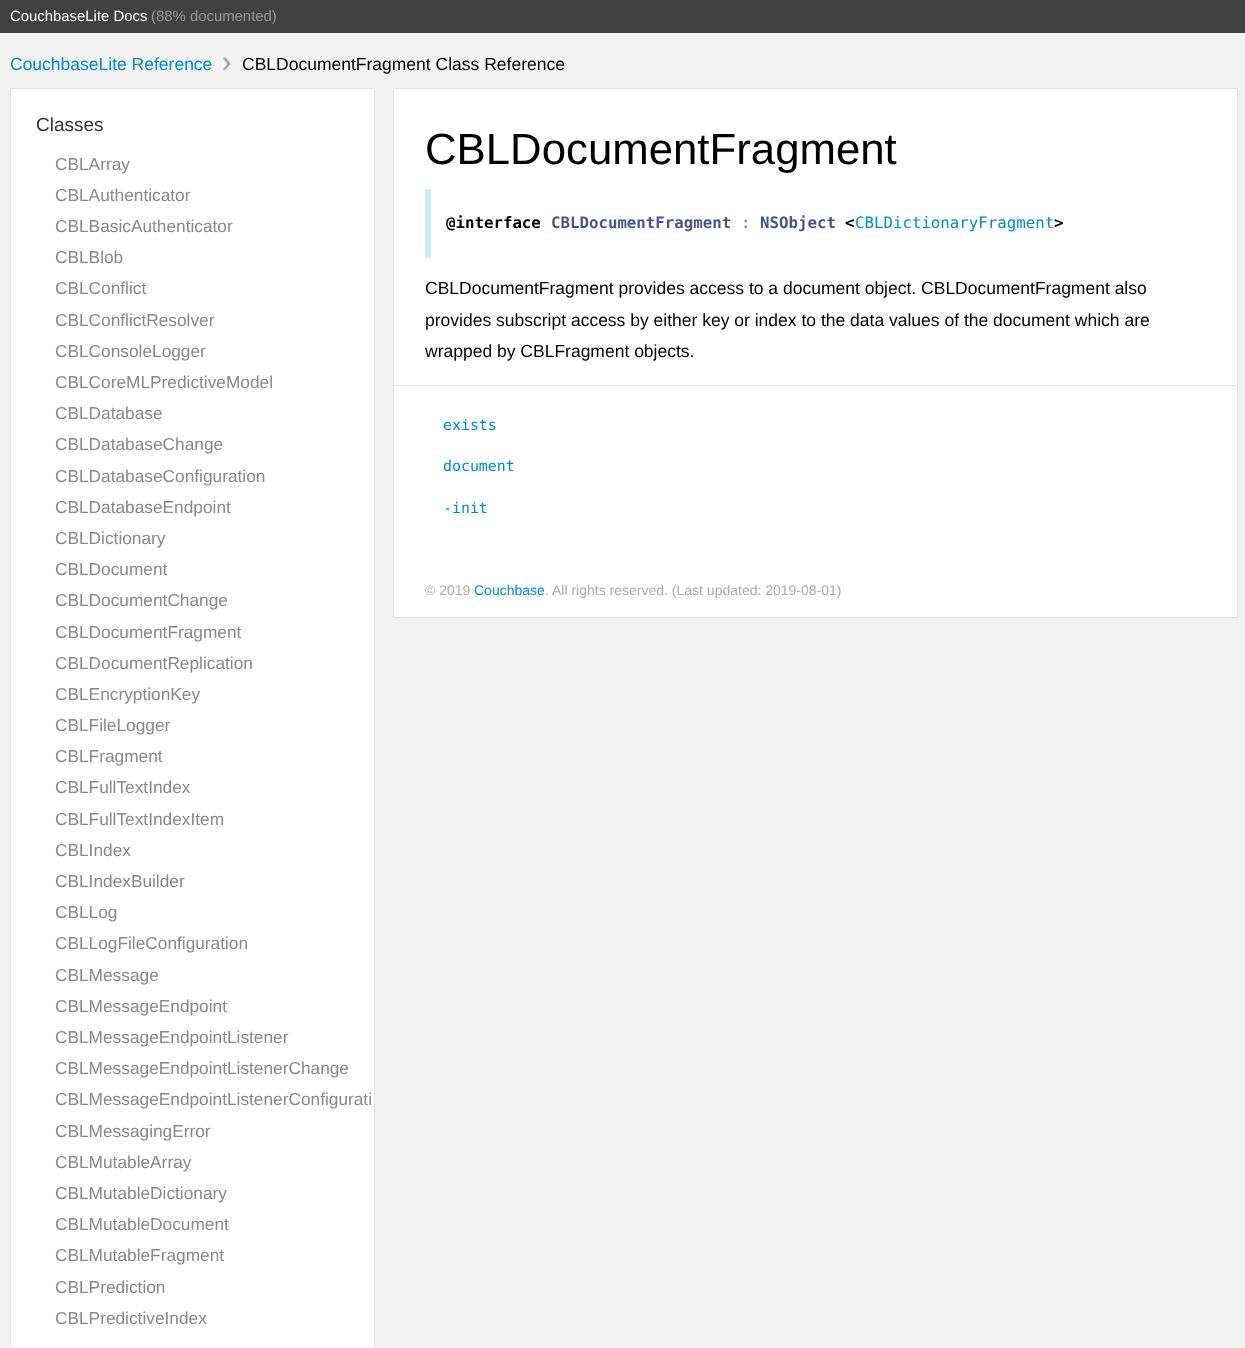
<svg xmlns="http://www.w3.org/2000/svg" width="1245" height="1348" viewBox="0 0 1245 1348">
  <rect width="100%" height="100%" fill="rgb(242,242,242)"/>
  <rect x="0" y="0" width="1245" height="33" fill="rgb(65,65,65)"/>
  <text x="10" y="21" font-family="Liberation Sans" font-size="14.9" fill="rgb(255,255,255)">CouchbaseLite Docs</text>
  <text x="151" y="21" font-family="Liberation Sans" font-size="14.9" fill="rgb(153,153,153)">(88% documented)</text>
  <text x="10" y="70" font-family="Liberation Sans" font-size="17.5" fill="rgb(0,136,204)">CouchbaseLite Reference</text>
  <image x="223" y="57" width="8" height="14" href="pic1.png"/>
  <text x="242" y="70" font-family="Liberation Sans" font-size="17.5" fill="rgb(0,0,0)">CBLDocumentFragment Class Reference</text>
  <rect x="10.5" y="88.5" width="364" height="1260" fill="none" stroke="rgb(226,226,226)"/>
  <rect x="11" y="89" width="363" height="1259" fill="rgb(255,255,255)"/>
  <text x="36" y="131" font-family="Liberation Sans" font-size="19" fill="rgb(51,51,51)">Classes</text>
  <g font-family="Liberation Sans" font-size="17.3" fill="rgb(136,136,136)">
    <text>
      <tspan x="55" y="170">CBLArray</tspan>
      <tspan x="55" y="201">CBLAuthenticator</tspan>
      <tspan x="55" y="232">CBLBasicAuthenticator</tspan>
      <tspan x="55" y="263">CBLBlob</tspan>
      <tspan x="55" y="294">CBLConflict</tspan>
      <tspan x="55" y="326">CBLConflictResolver</tspan>
      <tspan x="55" y="357">CBLConsoleLogger</tspan>
      <tspan x="55" y="388">CBLCoreMLPredictiveModel</tspan>
      <tspan x="55" y="419">CBLDatabase</tspan>
      <tspan x="55" y="450">CBLDatabaseChange</tspan>
      <tspan x="55" y="482">CBLDatabaseConfiguration</tspan>
      <tspan x="55" y="513">CBLDatabaseEndpoint</tspan>
      <tspan x="55" y="544">CBLDictionary</tspan>
      <tspan x="55" y="575">CBLDocument</tspan>
      <tspan x="55" y="606">CBLDocumentChange</tspan>
      <tspan x="55" y="638">CBLDocumentFragment</tspan>
      <tspan x="55" y="669">CBLDocumentReplication</tspan>
      <tspan x="55" y="700">CBLEncryptionKey</tspan>
      <tspan x="55" y="731">CBLFileLogger</tspan>
      <tspan x="55" y="762">CBLFragment</tspan>
      <tspan x="55" y="793">CBLFullTextIndex</tspan>
      <tspan x="55" y="825">CBLFullTextIndexItem</tspan>
      <tspan x="55" y="856">CBLIndex</tspan>
      <tspan x="55" y="887">CBLIndexBuilder</tspan>
      <tspan x="55" y="918">CBLLog</tspan>
      <tspan x="55" y="949">CBLLogFileConfiguration</tspan>
      <tspan x="55" y="981">CBLMessage</tspan>
      <tspan x="55" y="1012">CBLMessageEndpoint</tspan>
      <tspan x="55" y="1043">CBLMessageEndpointListener</tspan>
      <tspan x="55" y="1074">CBLMessageEndpointListenerChange</tspan>
      <tspan x="55" y="1105">CBLMessageEndpointListenerConfigurati</tspan>
      <tspan x="55" y="1137">CBLMessagingError</tspan>
      <tspan x="55" y="1168">CBLMutableArray</tspan>
      <tspan x="55" y="1199">CBLMutableDictionary</tspan>
      <tspan x="55" y="1230">CBLMutableDocument</tspan>
      <tspan x="55" y="1261">CBLMutableFragment</tspan>
      <tspan x="55" y="1293">CBLPrediction</tspan>
      <tspan x="55" y="1324">CBLPredictiveIndex</tspan>
    </text>
  </g>
  <rect x="393.5" y="88.5" width="844" height="529" fill="rgb(255,255,255)" stroke="rgb(226,226,226)"/>
  <text x="425" y="164" font-family="Liberation Sans" font-size="43.75" fill="rgb(0,0,0)">CBLDocumentFragment</text>
  <rect x="425" y="189" width="6" height="69" fill="rgb(205,233,244)"/>
  <text x="446" y="228" font-family="DejaVu Sans Mono" font-size="15.75" font-weight="bold" fill="rgb(0,0,0)">@interface</text>
  <text x="551" y="228" font-family="DejaVu Sans Mono" font-size="15.75" font-weight="bold" fill="rgb(68,85,136)">CBLDocumentFragment</text>
  <text x="741" y="228" font-family="DejaVu Sans Mono" font-size="15.75" fill="rgb(119,119,119)">:</text>
  <text x="760" y="228" font-family="DejaVu Sans Mono" font-size="15.75" font-weight="bold" fill="rgb(68,85,136)">NSObject</text>
  <text x="845" y="228" font-family="DejaVu Sans Mono" font-size="15.75" font-weight="bold" fill="rgb(0,0,0)">&lt;</text>
  <text x="855" y="228" font-family="DejaVu Sans Mono" font-size="15.75" fill="rgb(0,136,204)">CBLDictionaryFragment</text>
  <text x="1054" y="228" font-family="DejaVu Sans Mono" font-size="15.75" font-weight="bold" fill="rgb(0,0,0)">&gt;</text>
  <g font-family="Liberation Sans" font-size="17.5" fill="rgb(0,0,0)">
    <text>
      <tspan x="425" y="294">CBLDocumentFragment provides access to a document object. CBLDocumentFragment also</tspan>
      <tspan x="425" y="326">provides subscript access by either key or index to the data values of the document which are</tspan>
      <tspan x="425" y="357">wrapped by CBLFragment objects.</tspan>
    </text>
  </g>
  <rect x="394" y="385" width="842" height="1" fill="rgb(226,226,226)"/>
  <g font-family="DejaVu Sans Mono" font-size="14.9" fill="rgb(0,136,204)">
    <text x="443" y="430">exists</text>
    <text x="443" y="471">document</text>
    <text x="443" y="513">-init</text>
  </g>
  <text x="425" y="595" font-family="Liberation Sans" font-size="14" fill="rgb(170,170,170)">© 2019</text>
  <text x="474" y="595" font-family="Liberation Sans" font-size="14" fill="rgb(0,136,204)">Couchbase</text>
  <text x="545" y="595" font-family="Liberation Sans" font-size="14" fill="rgb(170,170,170)">. All rights reserved. (Last updated: 2019-08-01)</text>
</svg>
